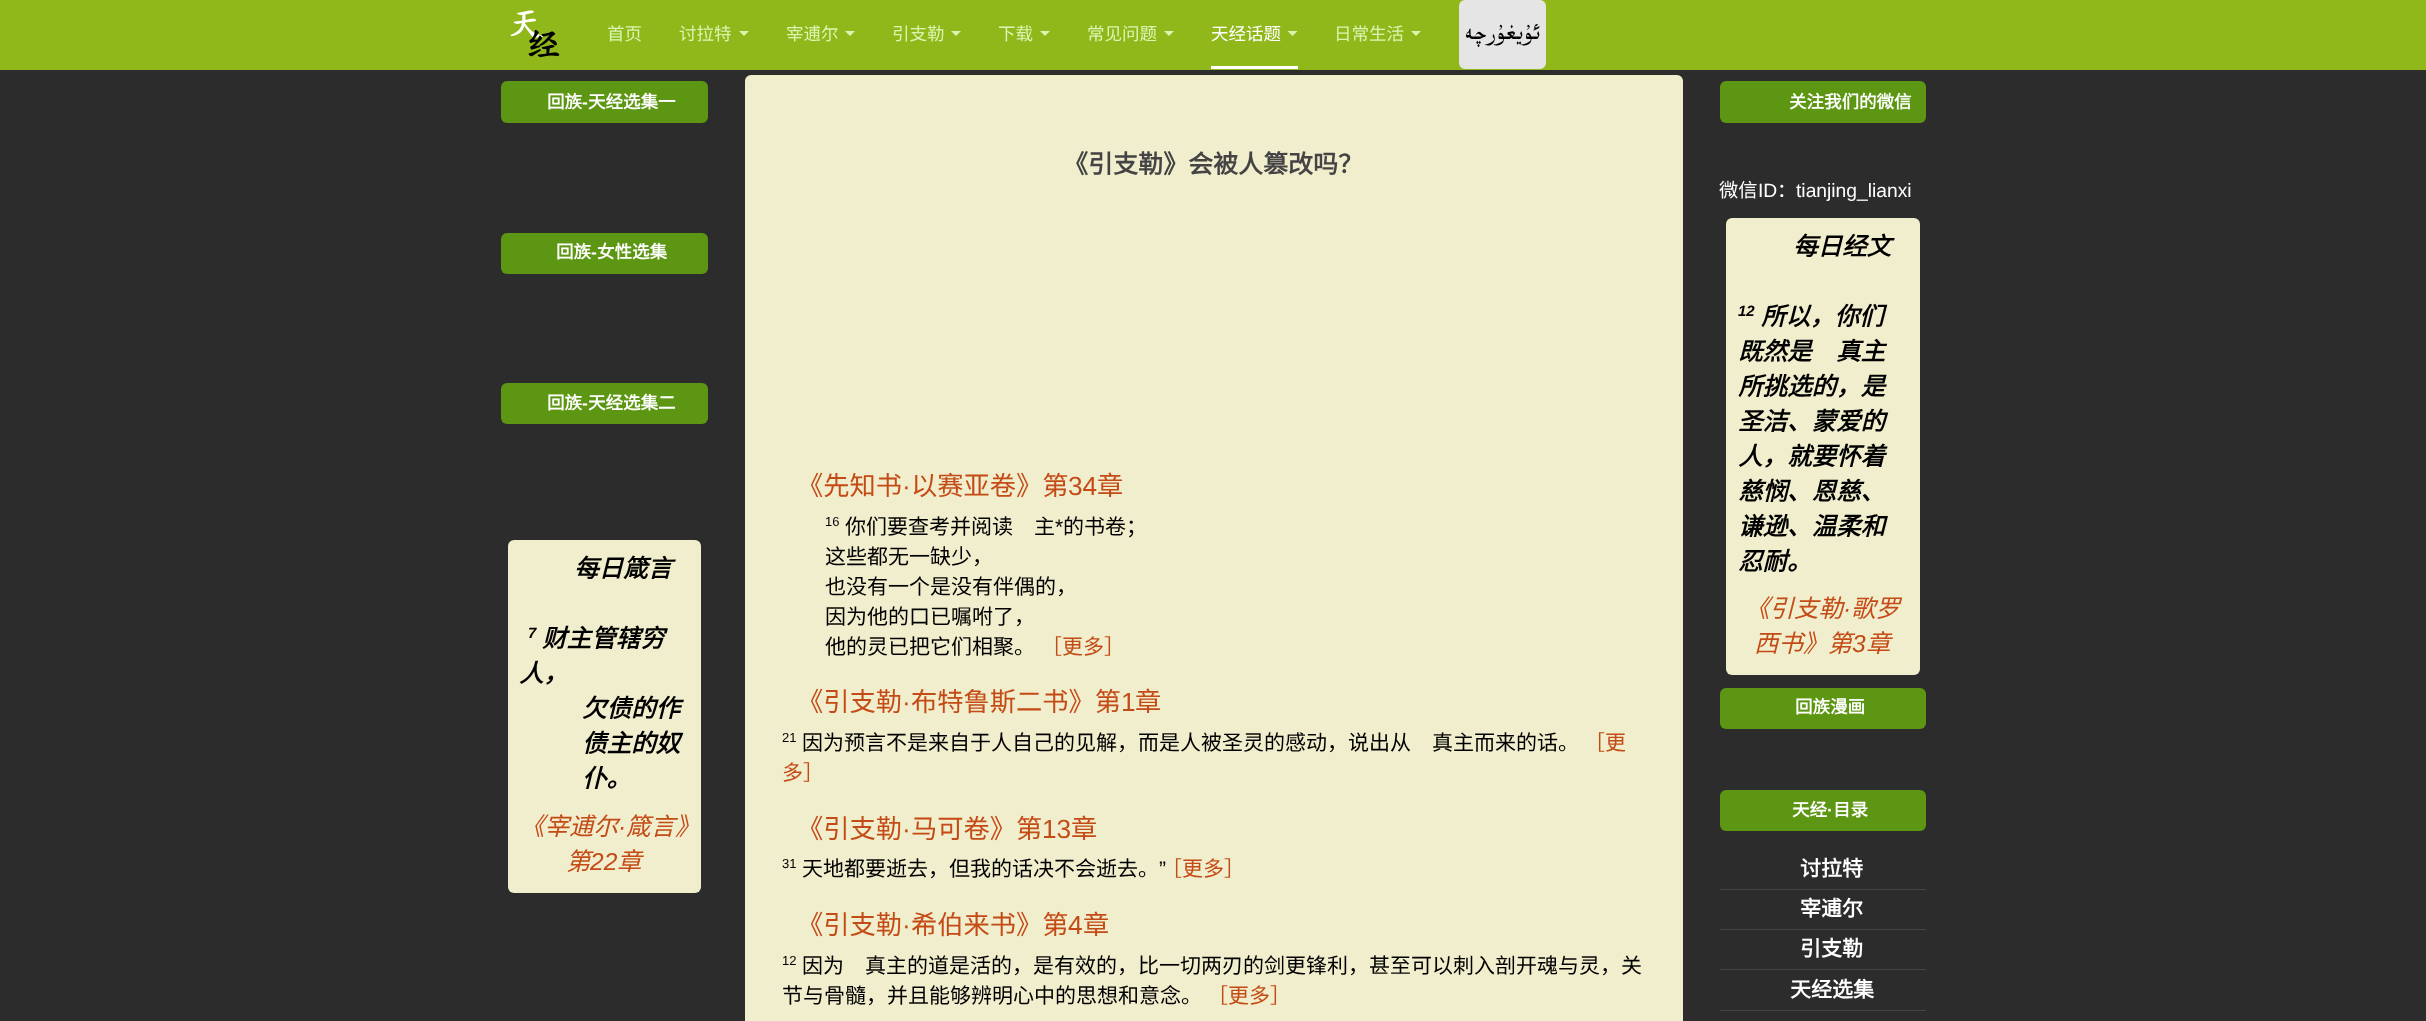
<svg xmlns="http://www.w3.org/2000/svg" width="2426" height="1021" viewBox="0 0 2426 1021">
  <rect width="100%" height="100%" fill="rgb(44,44,44)"/>
  <rect x="0" y="0" width="2426" height="70" fill="rgb(144,184,26)"/>
  <image x="510" y="10" width="50" height="48" href="pic1.png"/>
  <g font-family="Noto Sans CJK SC" font-size="17.5" fill="rgb(216,246,177)">
    <text x="607" y="40">首页</text>
    <text x="679" y="40">讨拉特</text>
  </g>
  <path d="M739 31H749L744 36Z" fill="rgb(216,246,177)"/>
  <text x="786" y="40" font-family="Noto Sans CJK SC" font-size="17.5" fill="rgb(216,246,177)">宰逋尔</text>
  <path d="M845 31H855L850 36Z" fill="rgb(216,246,177)"/>
  <text x="892" y="40" font-family="Noto Sans CJK SC" font-size="17.5" fill="rgb(216,246,177)">引支勒</text>
  <path d="M951 31H961L956 36Z" fill="rgb(216,246,177)"/>
  <text x="998" y="40" font-family="Noto Sans CJK SC" font-size="17.5" fill="rgb(216,246,177)">下载</text>
  <path d="M1040 31H1050L1045 36Z" fill="rgb(216,246,177)"/>
  <text x="1087" y="40" font-family="Noto Sans CJK SC" font-size="17.5" fill="rgb(216,246,177)">常见问题</text>
  <path d="M1164 31H1174L1169 36Z" fill="rgb(216,246,177)"/>
  <rect x="1211" y="66" width="87" height="3" fill="rgb(255,255,255)"/>
  <text x="1211" y="40" font-family="Noto Sans CJK SC" font-size="17.5" fill="rgb(255,255,255)">天经话题</text>
  <path d="M1287.5 31H1297.5L1292.5 36Z" fill="rgb(216,246,177)"/>
  <text x="1334" y="40" font-family="Noto Sans CJK SC" font-size="17.5" fill="rgb(216,246,177)">日常生活</text>
  <path d="M1411 31H1421L1416 36Z" fill="rgb(216,246,177)"/>
  <rect x="1462" y="3" width="81" height="63" rx="3" fill="rgb(229,229,229)" stroke="rgb(229,229,229)" stroke-width="6"/>
  <text x="1540" y="39" font-family="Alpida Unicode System" font-size="24.5" direction="rtl" fill="rgb(0,0,0)">ئۇيغۇرچە</text>
  <rect x="501" y="81" width="207" height="42" rx="6" fill="rgb(93,150,18)"/>
  <text x="547" y="108" font-family="Noto Sans CJK SC" font-size="17.5" font-weight="bold" fill="rgb(255,255,255)">回族</text>
  <text x="582" y="108" font-family="Liberation Sans" font-size="17.5" font-weight="bold" fill="rgb(255,255,255)">-</text>
  <text x="588" y="108" font-family="Noto Sans CJK SC" font-size="17.5" font-weight="bold" fill="rgb(255,255,255)">天经选集一</text>
  <rect x="501" y="233" width="207" height="41" rx="6" fill="rgb(93,150,18)"/>
  <text x="556" y="258" font-family="Noto Sans CJK SC" font-size="17.5" font-weight="bold" fill="rgb(255,255,255)">回族</text>
  <text x="591" y="258" font-family="Liberation Sans" font-size="17.5" font-weight="bold" fill="rgb(255,255,255)">-</text>
  <text x="597" y="258" font-family="Noto Sans CJK SC" font-size="17.5" font-weight="bold" fill="rgb(255,255,255)">女性选集</text>
  <rect x="501" y="383" width="207" height="41" rx="6" fill="rgb(93,150,18)"/>
  <text x="547" y="409" font-family="Noto Sans CJK SC" font-size="17.5" font-weight="bold" fill="rgb(255,255,255)">回族</text>
  <text x="582" y="409" font-family="Liberation Sans" font-size="17.5" font-weight="bold" fill="rgb(255,255,255)">-</text>
  <text x="588" y="409" font-family="Noto Sans CJK SC" font-size="17.5" font-weight="bold" fill="rgb(255,255,255)">天经选集二</text>
  <rect x="508" y="540" width="193" height="353" rx="6" fill="rgb(241,238,205)"/>
  <text x="574" y="577" font-family="Noto Sans CJK SC" font-size="24.5" font-weight="bold" font-style="italic" fill="rgb(0,0,0)">每日箴言</text>
  <text x="528" y="638" font-family="Liberation Sans" font-size="15" font-weight="bold" font-style="italic" fill="rgb(0,0,0)">7</text>
  <g font-family="Noto Sans CJK SC" font-size="24.5" font-weight="bold" font-style="italic" fill="rgb(0,0,0)">
    <text x="542" y="647">财主管辖穷</text>
    <text x="519" y="682">人，</text>
    <text>
      <tspan x="582" y="717">欠债的作</tspan>
      <tspan x="582" y="752">债主的奴</tspan>
      <tspan x="582" y="787">仆。</tspan>
    </text>
  </g>
  <text x="520" y="835" font-family="Noto Sans CJK SC" font-size="24.5" font-style="italic" fill="rgb(196,75,22)">《宰逋尔</text>
  <text x="618" y="835" font-family="Liberation Sans" font-size="24.5" font-style="italic" fill="rgb(196,75,22)">·</text>
  <g font-family="Noto Sans CJK SC" font-size="24.5" font-style="italic" fill="rgb(196,75,22)">
    <text x="626" y="835">箴言》</text>
    <text x="566" y="870">第</text>
  </g>
  <text x="590" y="870" font-family="Liberation Sans" font-size="24.5" font-style="italic" fill="rgb(196,75,22)">22</text>
  <text x="617" y="870" font-family="Noto Sans CJK SC" font-size="24.5" font-style="italic" fill="rgb(196,75,22)">章</text>
  <rect x="745" y="75" width="938" height="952" rx="6" fill="rgb(241,238,205)"/>
  <text x="1063" y="173" font-family="Noto Sans CJK SC" font-size="25" font-weight="bold" fill="rgb(68,68,68)">《引支勒》会被人篡改吗？</text>
  <text x="797" y="495" font-family="Noto Sans CJK SC" font-size="26.25" fill="rgb(196,75,22)">《先知书</text>
  <text x="902" y="495" font-family="Liberation Sans" font-size="26.25" fill="rgb(196,75,22)">·</text>
  <text x="911" y="495" font-family="Noto Sans CJK SC" font-size="26.25" fill="rgb(196,75,22)">以赛亚卷》第</text>
  <text x="1068" y="495" font-family="Liberation Sans" font-size="26.25" fill="rgb(196,75,22)">34</text>
  <text x="1097" y="495" font-family="Noto Sans CJK SC" font-size="26.25" fill="rgb(196,75,22)">章</text>
  <text x="825" y="526" font-family="Liberation Sans" font-size="13" fill="rgb(0,0,0)">16</text>
  <text x="845" y="534" font-family="Noto Sans CJK SC" font-size="21" fill="rgb(0,0,0)">你们要查考并阅读　主</text>
  <text x="1055" y="534" font-family="Liberation Sans" font-size="21" fill="rgb(0,0,0)">*</text>
  <g font-family="Noto Sans CJK SC" font-size="21" fill="rgb(0,0,0)">
    <text x="1063" y="534">的书卷；</text>
    <text>
      <tspan x="825" y="564">这些都无一缺少，</tspan>
      <tspan x="825" y="594">也没有一个是没有伴偶的，</tspan>
      <tspan x="825" y="624">因为他的口已嘱咐了，</tspan>
      <tspan x="825" y="654">他的灵已把它们相聚。</tspan>
    </text>
  </g>
  <text x="1041" y="654" font-family="Noto Sans CJK SC" font-size="21" fill="rgb(196,75,22)">［更多］</text>
  <text x="797" y="711" font-family="Noto Sans CJK SC" font-size="26.25" fill="rgb(196,75,22)">《引支勒</text>
  <text x="902" y="711" font-family="Liberation Sans" font-size="26.25" fill="rgb(196,75,22)">·</text>
  <text x="911" y="711" font-family="Noto Sans CJK SC" font-size="26.25" fill="rgb(196,75,22)">布特鲁斯二书》第</text>
  <text x="1121" y="711" font-family="Liberation Sans" font-size="26.25" fill="rgb(196,75,22)">1</text>
  <text x="1135" y="711" font-family="Noto Sans CJK SC" font-size="26.25" fill="rgb(196,75,22)">章</text>
  <text x="782" y="742" font-family="Liberation Sans" font-size="13" fill="rgb(0,0,0)">21</text>
  <text x="802" y="750" font-family="Noto Sans CJK SC" font-size="21" fill="rgb(0,0,0)">因为预言不是来自于人自己的见解，而是人被圣灵的感动，说出从　真主而来的话。</text>
  <g font-family="Noto Sans CJK SC" font-size="21" fill="rgb(196,75,22)">
    <text x="1584" y="750">［更</text>
    <text x="782" y="780">多］</text>
  </g>
  <text x="797" y="838" font-family="Noto Sans CJK SC" font-size="26.25" fill="rgb(196,75,22)">《引支勒</text>
  <text x="902" y="838" font-family="Liberation Sans" font-size="26.25" fill="rgb(196,75,22)">·</text>
  <text x="911" y="838" font-family="Noto Sans CJK SC" font-size="26.25" fill="rgb(196,75,22)">马可卷》第</text>
  <text x="1042" y="838" font-family="Liberation Sans" font-size="26.25" fill="rgb(196,75,22)">13</text>
  <text x="1071" y="838" font-family="Noto Sans CJK SC" font-size="26.25" fill="rgb(196,75,22)">章</text>
  <text x="782" y="868" font-family="Liberation Sans" font-size="13" fill="rgb(0,0,0)">31</text>
  <text x="802" y="876" font-family="Noto Sans CJK SC" font-size="21" fill="rgb(0,0,0)">天地都要逝去，但我的话决不会逝去。</text>
  <text x="1159" y="876" font-family="Liberation Sans" font-size="21" fill="rgb(0,0,0)">”</text>
  <text x="1161" y="876" font-family="Noto Sans CJK SC" font-size="21" fill="rgb(196,75,22)">［更多］</text>
  <text x="797" y="934" font-family="Noto Sans CJK SC" font-size="26.25" fill="rgb(196,75,22)">《引支勒</text>
  <text x="902" y="934" font-family="Liberation Sans" font-size="26.25" fill="rgb(196,75,22)">·</text>
  <text x="911" y="934" font-family="Noto Sans CJK SC" font-size="26.25" fill="rgb(196,75,22)">希伯来书》第</text>
  <text x="1068" y="934" font-family="Liberation Sans" font-size="26.25" fill="rgb(196,75,22)">4</text>
  <text x="1083" y="934" font-family="Noto Sans CJK SC" font-size="26.25" fill="rgb(196,75,22)">章</text>
  <text x="782" y="965" font-family="Liberation Sans" font-size="13" fill="rgb(0,0,0)">12</text>
  <g font-family="Noto Sans CJK SC" font-size="21" fill="rgb(0,0,0)">
    <text x="802" y="973">因为　真主的道是活的，是有效的，比一切两刃的剑更锋利，甚至可以刺入剖开魂与灵，关</text>
    <text x="782" y="1003">节与骨髓，并且能够辨明心中的思想和意念。</text>
  </g>
  <text x="1207" y="1003" font-family="Noto Sans CJK SC" font-size="21" fill="rgb(196,75,22)">［更多］</text>
  <rect x="1720" y="81" width="206" height="42" rx="6" fill="rgb(93,150,18)"/>
  <text x="1789" y="108" font-family="Noto Sans CJK SC" font-size="17.5" font-weight="bold" fill="rgb(255,255,255)">关注我们的微信</text>
  <text x="1719" y="197" font-family="Noto Sans CJK SC" font-size="19.25" fill="rgb(255,255,255)">微信</text>
  <text x="1758" y="197" font-family="Liberation Sans" font-size="19.25" fill="rgb(255,255,255)">ID</text>
  <text x="1777" y="197" font-family="Noto Sans CJK SC" font-size="19.25" fill="rgb(255,255,255)">：</text>
  <text x="1796" y="197" font-family="Liberation Sans" font-size="19.25" fill="rgb(255,255,255)">tianjing_lianxi</text>
  <rect x="1726" y="218" width="194" height="457" rx="6" fill="rgb(241,238,205)"/>
  <text x="1793" y="255" font-family="Noto Sans CJK SC" font-size="24.5" font-weight="bold" font-style="italic" fill="rgb(0,0,0)">每日经文</text>
  <text x="1738" y="316" font-family="Liberation Sans" font-size="15" font-weight="bold" font-style="italic" fill="rgb(0,0,0)">12</text>
  <g font-family="Noto Sans CJK SC" font-size="24.5" font-weight="bold" font-style="italic" fill="rgb(0,0,0)">
    <text x="1761" y="325">所以，你们</text>
    <text>
      <tspan x="1738" y="360">既然是　真主</tspan>
      <tspan x="1738" y="395">所挑选的，是</tspan>
      <tspan x="1738" y="430">圣洁、蒙爱的</tspan>
      <tspan x="1738" y="465">人，就要怀着</tspan>
      <tspan x="1738" y="500">慈悯、恩慈、</tspan>
      <tspan x="1738" y="535">谦逊、温柔和</tspan>
      <tspan x="1738" y="570">忍耐。</tspan>
    </text>
  </g>
  <text x="1745" y="617" font-family="Noto Sans CJK SC" font-size="24.5" font-style="italic" fill="rgb(196,75,22)">《引支勒</text>
  <text x="1843" y="617" font-family="Liberation Sans" font-size="24.5" font-style="italic" fill="rgb(196,75,22)">·</text>
  <g font-family="Noto Sans CJK SC" font-size="24.5" font-style="italic" fill="rgb(196,75,22)">
    <text x="1851" y="617">歌罗</text>
    <text x="1754" y="652">西书》第</text>
  </g>
  <text x="1852" y="652" font-family="Liberation Sans" font-size="24.5" font-style="italic" fill="rgb(196,75,22)">3</text>
  <text x="1866" y="652" font-family="Noto Sans CJK SC" font-size="24.5" font-style="italic" fill="rgb(196,75,22)">章</text>
  <rect x="1720" y="688" width="206" height="41" rx="6" fill="rgb(93,150,18)"/>
  <text x="1795" y="713" font-family="Noto Sans CJK SC" font-size="17.5" font-weight="bold" fill="rgb(255,255,255)">回族漫画</text>
  <rect x="1720" y="790" width="206" height="41" rx="6" fill="rgb(93,150,18)"/>
  <text x="1792" y="816" font-family="Noto Sans CJK SC" font-size="17.5" font-weight="bold" fill="rgb(255,255,255)">天经</text>
  <text x="1827" y="816" font-family="Liberation Sans" font-size="17.5" font-weight="bold" fill="rgb(255,255,255)">·</text>
  <text x="1833" y="816" font-family="Noto Sans CJK SC" font-size="17.5" font-weight="bold" fill="rgb(255,255,255)">目录</text>
  <rect x="1720" y="889" width="206" height="1" fill="rgb(69,69,69)"/>
  <text x="1800" y="876" font-family="Noto Sans CJK SC" font-size="21" font-weight="bold" fill="rgb(255,255,255)">讨拉特</text>
  <rect x="1720" y="929" width="206" height="1" fill="rgb(69,69,69)"/>
  <text x="1800" y="916" font-family="Noto Sans CJK SC" font-size="21" font-weight="bold" fill="rgb(255,255,255)">宰逋尔</text>
  <rect x="1720" y="969" width="206" height="1" fill="rgb(69,69,69)"/>
  <text x="1800" y="956" font-family="Noto Sans CJK SC" font-size="21" font-weight="bold" fill="rgb(255,255,255)">引支勒</text>
  <rect x="1720" y="1010" width="206" height="1" fill="rgb(69,69,69)"/>
  <text x="1790" y="997" font-family="Noto Sans CJK SC" font-size="21" font-weight="bold" fill="rgb(255,255,255)">天经选集</text>
</svg>
